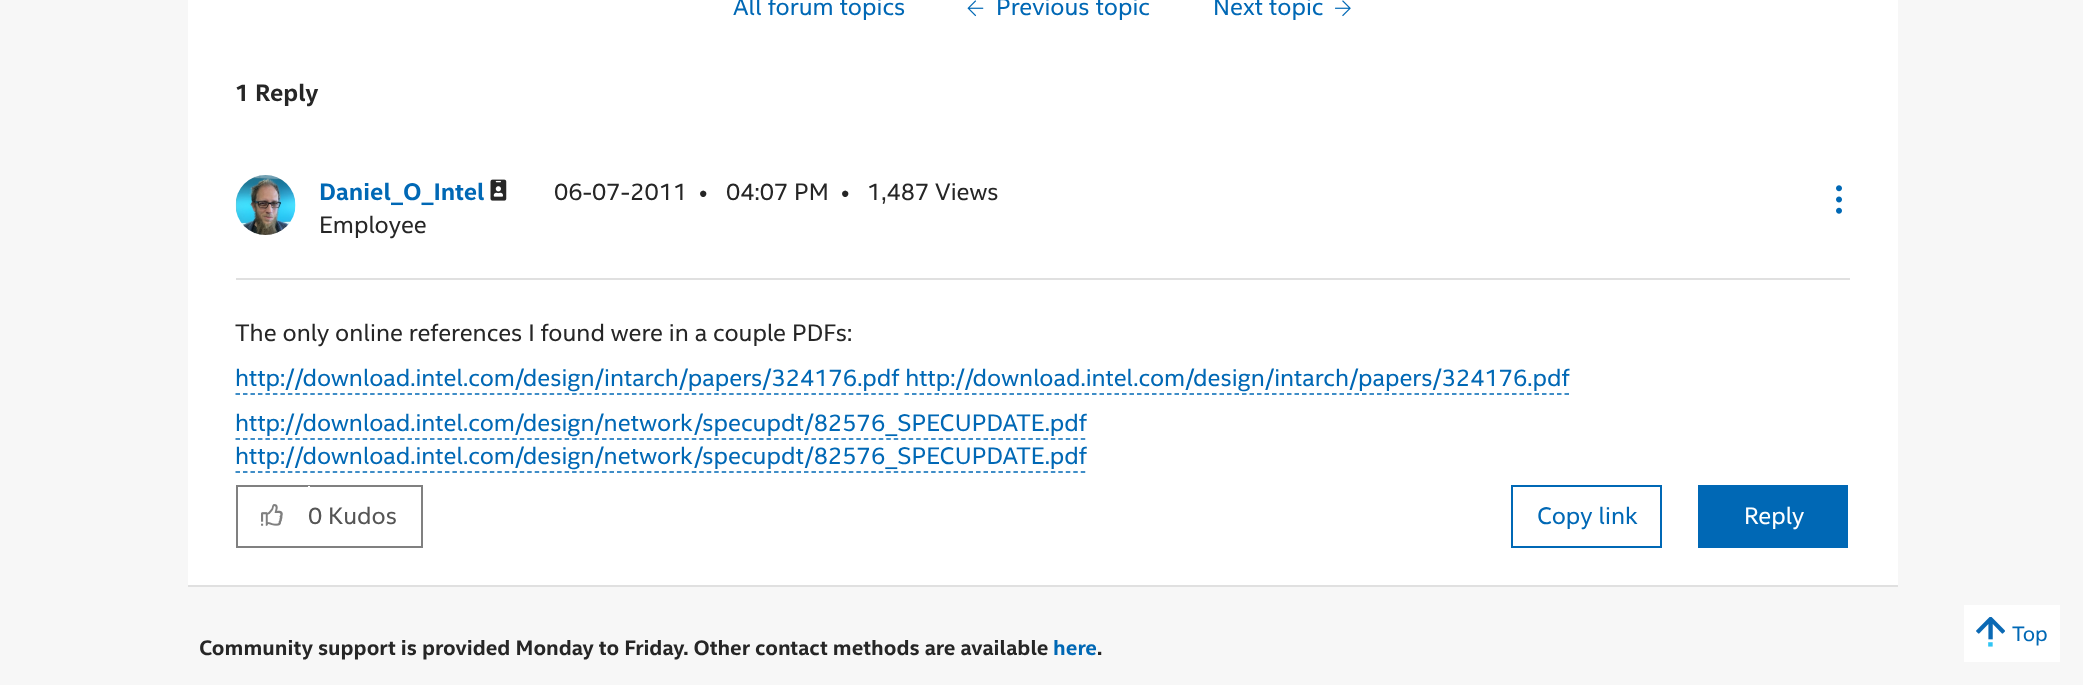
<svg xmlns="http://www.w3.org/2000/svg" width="2083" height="685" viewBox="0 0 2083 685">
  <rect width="100%" height="100%" fill="rgb(247,247,247)"/>
  <rect x="188" y="0" width="1710" height="585" fill="rgb(255,255,255)"/>
  <text x="733" y="15" font-family="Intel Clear" font-size="24" fill="rgb(0,104,181)">All forum topics</text>
  <image x="967" y="0" width="17" height="17" href="pic1.png"/>
  <g font-family="Intel Clear" font-size="24" fill="rgb(0,104,181)">
    <text x="996" y="15">Previous topic</text>
    <text x="1213" y="15">Next topic</text>
  </g>
  <image x="1335" y="0" width="16" height="17" href="pic2.png"/>
  <text x="235" y="101" font-family="Intel Clear" font-size="24" font-weight="bold" fill="rgb(38,38,38)">1 Reply</text>
  <rect x="236" y="278" width="1614" height="2" fill="rgb(224,224,224)"/>
  <image x="235" y="175" width="61" height="60" href="pic3.png"/>
  <text x="319" y="200" font-family="Intel Clear" font-size="24" font-weight="bold" fill="rgb(0,104,181)">Daniel_O_Intel</text>
  <image x="490" y="179" width="17" height="22" href="pic4.png"/>
  <g font-family="Intel Clear" font-size="24" fill="rgb(38,38,38)">
    <text x="319" y="233">Employee</text>
    <text x="554" y="200">06-07-2011</text>
    <text x="699" y="200">•</text>
    <text x="726" y="200">04:07 PM</text>
    <text x="841" y="200">•</text>
    <text x="867" y="200">1,487 Views</text>
  </g>
  <image x="1836" y="185" width="6" height="29" href="pic5.png"/>
  <text x="235" y="341" font-family="Intel Clear" font-size="24" fill="rgb(38,38,38)">The only online references I found were in a couple PDFs:</text>
  <text x="235" y="386" font-family="Intel Clear" font-size="24" fill="rgb(0,104,181)">http://download.intel.com/design/intarch/papers/324176.pdf http://download.intel.com/design/intarch/papers/324176.pdf</text>
  <path d="M235.5 394H898.5" fill="none" stroke="rgb(0,104,181)" stroke-width="1.5" stroke-dasharray="4.5 2.98"/>
  <path d="M904.5 394H1569" fill="none" stroke="rgb(0,104,181)" stroke-width="1.5" stroke-dasharray="4.5 3"/>
  <text x="235" y="431" font-family="Intel Clear" font-size="24" fill="rgb(0,104,181)">http://download.intel.com/design/network/specupdt/82576_SPECUPDATE.pdf</text>
  <path d="M235.5 439H1086" fill="none" stroke="rgb(0,104,181)" stroke-width="1.5" stroke-dasharray="4.5 2.98"/>
  <text x="235" y="464" font-family="Intel Clear" font-size="24" fill="rgb(0,104,181)">http://download.intel.com/design/network/specupdt/82576_SPECUPDATE.pdf</text>
  <path d="M235.5 472H1086" fill="none" stroke="rgb(0,104,181)" stroke-width="1.5" stroke-dasharray="4.5 2.98"/>
  <rect x="237" y="486" width="185" height="61" fill="none" stroke="rgb(128,128,128)" stroke-width="2"/>
  <image x="261" y="504" width="22" height="22" href="pic6.png"/>
  <rect x="308" y="486" width="2" height="1" fill="rgb(255,255,255)"/>
  <text x="308" y="524" font-family="Intel Clear" font-size="24" fill="rgb(85,85,85)">0 Kudos</text>
  <rect x="1512" y="486" width="149" height="61" fill="none" stroke="rgb(0,104,181)" stroke-width="2"/>
  <text x="1537" y="524" font-family="Intel Clear" font-size="24" fill="rgb(0,104,181)">Copy link</text>
  <rect x="1698" y="485" width="150" height="63" fill="rgb(0,104,181)"/>
  <text x="1744" y="524" font-family="Intel Clear" font-size="24" fill="rgb(255,255,255)">Reply</text>
  <rect x="188" y="585" width="1710" height="2" fill="rgb(224,224,224)"/>
  <rect x="1964" y="605" width="96" height="57" fill="rgb(255,255,255)"/>
  <image x="1976" y="617" width="29" height="30" href="pic7.png"/>
  <text x="2012" y="641" font-family="Intel Clear" font-size="21" fill="rgb(0,104,181)">Top</text>
  <text x="199" y="655" font-family="Intel Clear" font-size="21" font-weight="bold" fill="rgb(38,38,38)">Community support is provided Monday to Friday. Other contact methods are available</text>
  <text x="1053" y="655" font-family="Intel Clear" font-size="21" font-weight="bold" fill="rgb(0,104,181)">here</text>
  <text x="1097" y="655" font-family="Intel Clear" font-size="21" font-weight="bold" fill="rgb(38,38,38)">.</text>
</svg>
